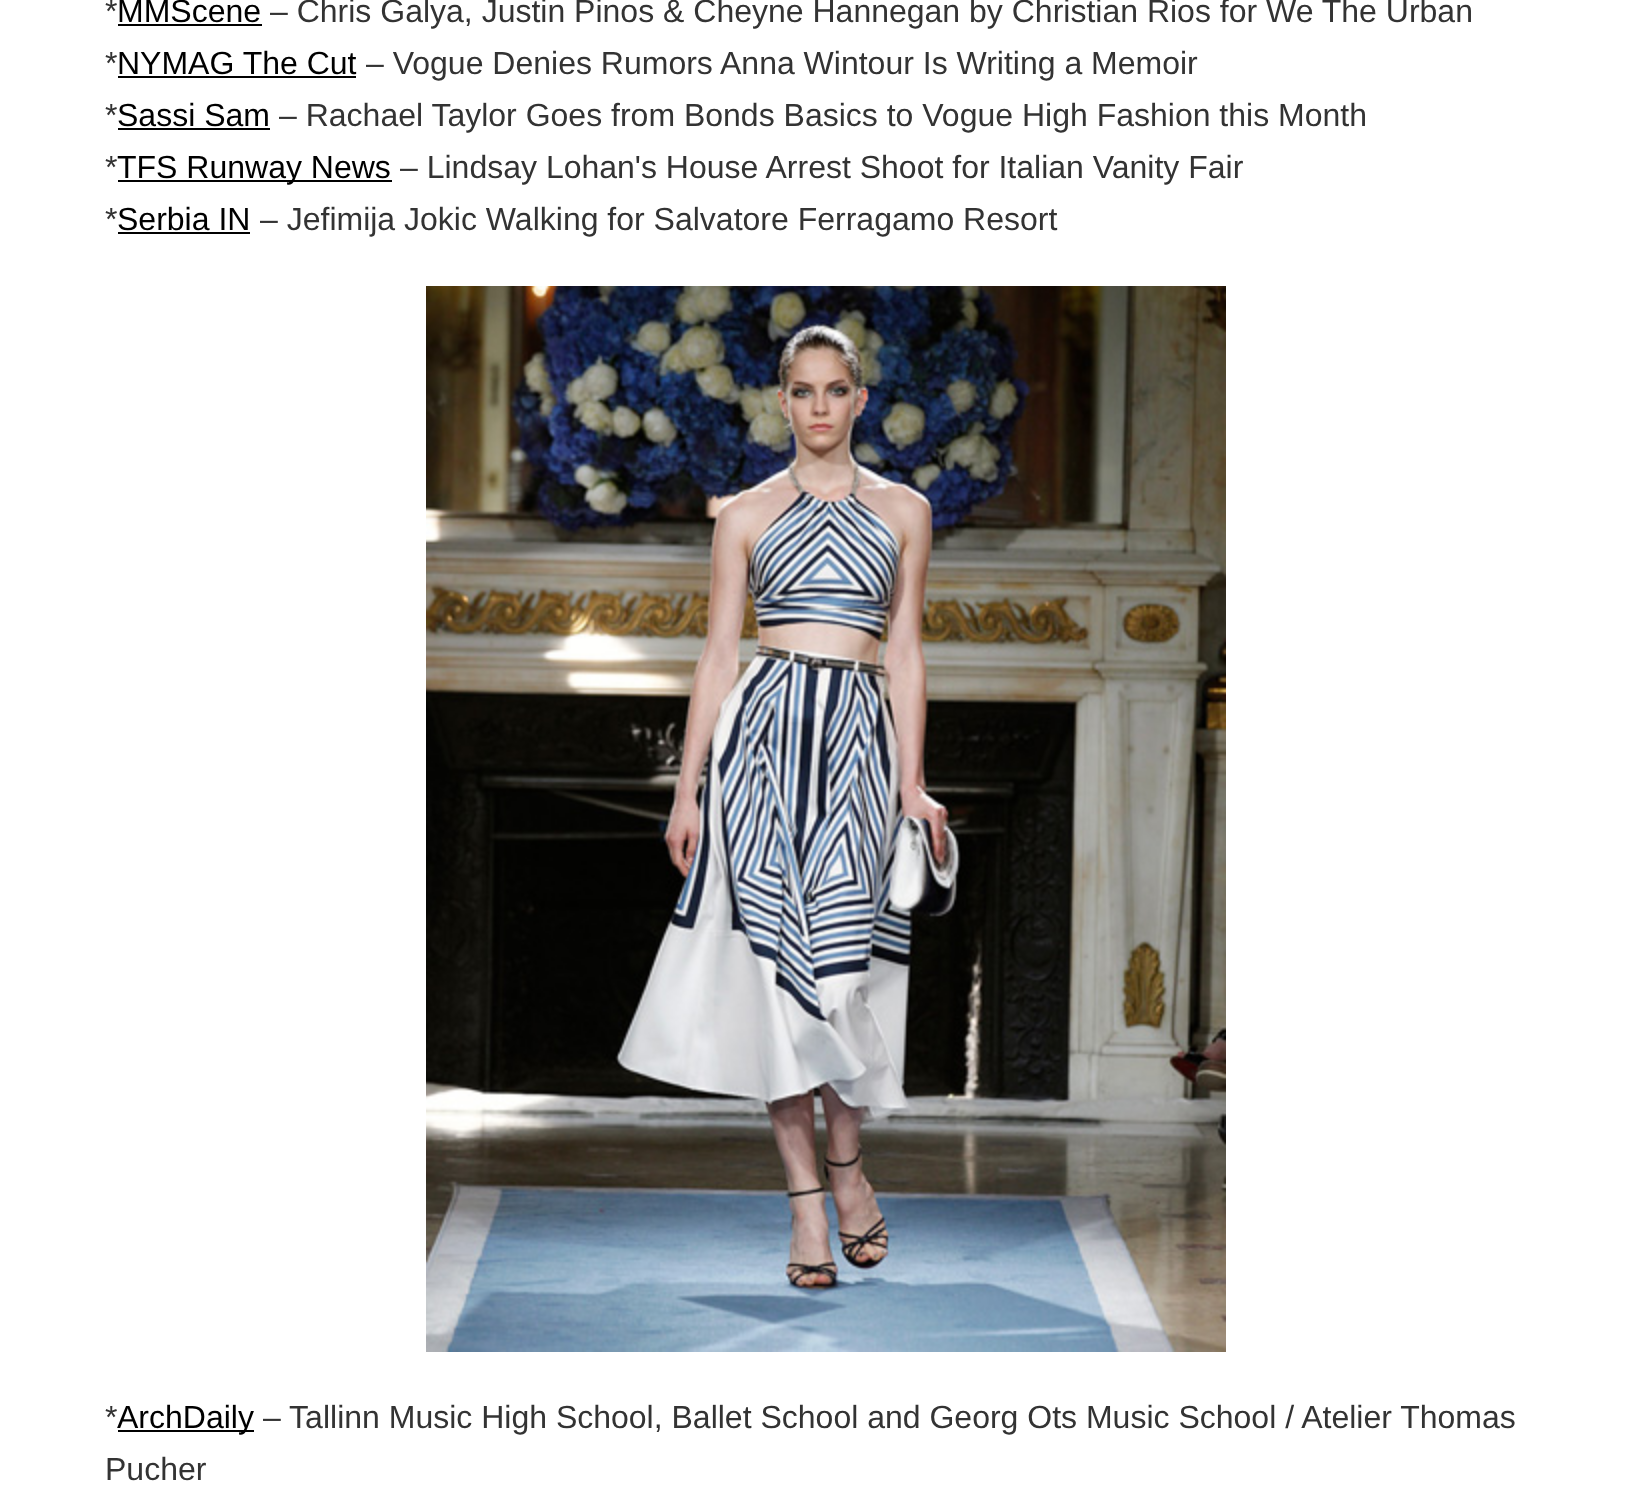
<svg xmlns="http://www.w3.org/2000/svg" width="1649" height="1505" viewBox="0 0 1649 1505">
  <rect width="100%" height="100%" fill="rgb(255,255,255)"/>
  <text x="105" y="22" font-family="Liberation Sans" font-size="32" fill="rgb(51,51,51)">*</text>
  <text x="117" y="22" font-family="Liberation Sans" font-size="32" fill="rgb(0,0,0)">MMScene</text>
  <rect x="118" y="24" width="144" height="2" fill="rgb(0,0,0)"/>
  <g font-family="Liberation Sans" font-size="32" fill="rgb(51,51,51)">
    <text x="270" y="22">– Chris Galya, Justin Pinos &amp; Cheyne Hannegan by Christian Rios for We The Urban</text>
    <text x="105" y="74">*</text>
  </g>
  <text x="117" y="74" font-family="Liberation Sans" font-size="32" fill="rgb(0,0,0)">NYMAG The Cut</text>
  <rect x="118" y="76" width="238" height="2" fill="rgb(0,0,0)"/>
  <g font-family="Liberation Sans" font-size="32" fill="rgb(51,51,51)">
    <text x="366" y="74">– Vogue Denies Rumors Anna Wintour Is Writing a Memoir</text>
    <text x="105" y="126">*</text>
  </g>
  <text x="117" y="126" font-family="Liberation Sans" font-size="32" fill="rgb(0,0,0)">Sassi Sam</text>
  <rect x="118" y="128" width="152" height="2" fill="rgb(0,0,0)"/>
  <g font-family="Liberation Sans" font-size="32" fill="rgb(51,51,51)">
    <text x="279" y="126">– Rachael Taylor Goes from Bonds Basics to Vogue High Fashion this Month</text>
    <text x="105" y="178">*</text>
  </g>
  <rect x="118" y="180" width="274" height="2" fill="rgb(0,0,0)"/>
  <text x="117" y="178" font-family="Liberation Sans" font-size="32" fill="rgb(0,0,0)">TFS Runway News</text>
  <g font-family="Liberation Sans" font-size="32" fill="rgb(51,51,51)">
    <text x="400" y="178">– Lindsay Lohan's House Arrest Shoot for Italian Vanity Fair</text>
    <text x="105" y="230">*</text>
  </g>
  <text x="117" y="230" font-family="Liberation Sans" font-size="32" fill="rgb(0,0,0)">Serbia IN</text>
  <rect x="118" y="232" width="132" height="2" fill="rgb(0,0,0)"/>
  <text x="260" y="230" font-family="Liberation Sans" font-size="32" fill="rgb(51,51,51)">– Jefimija Jokic Walking for Salvatore Ferragamo Resort</text>
  <image x="426" y="286" width="800" height="1066" href="pic1.png"/>
  <text x="105" y="1428" font-family="Liberation Sans" font-size="32" fill="rgb(51,51,51)">*</text>
  <rect x="118" y="1430" width="136" height="2" fill="rgb(0,0,0)"/>
  <text x="117" y="1428" font-family="Liberation Sans" font-size="32" fill="rgb(0,0,0)">ArchDaily</text>
  <g font-family="Liberation Sans" font-size="32" fill="rgb(51,51,51)">
    <text x="263" y="1428">– Tallinn Music High School, Ballet School and Georg Ots Music School / Atelier Thomas</text>
    <text x="105" y="1480">Pucher</text>
  </g>
</svg>
